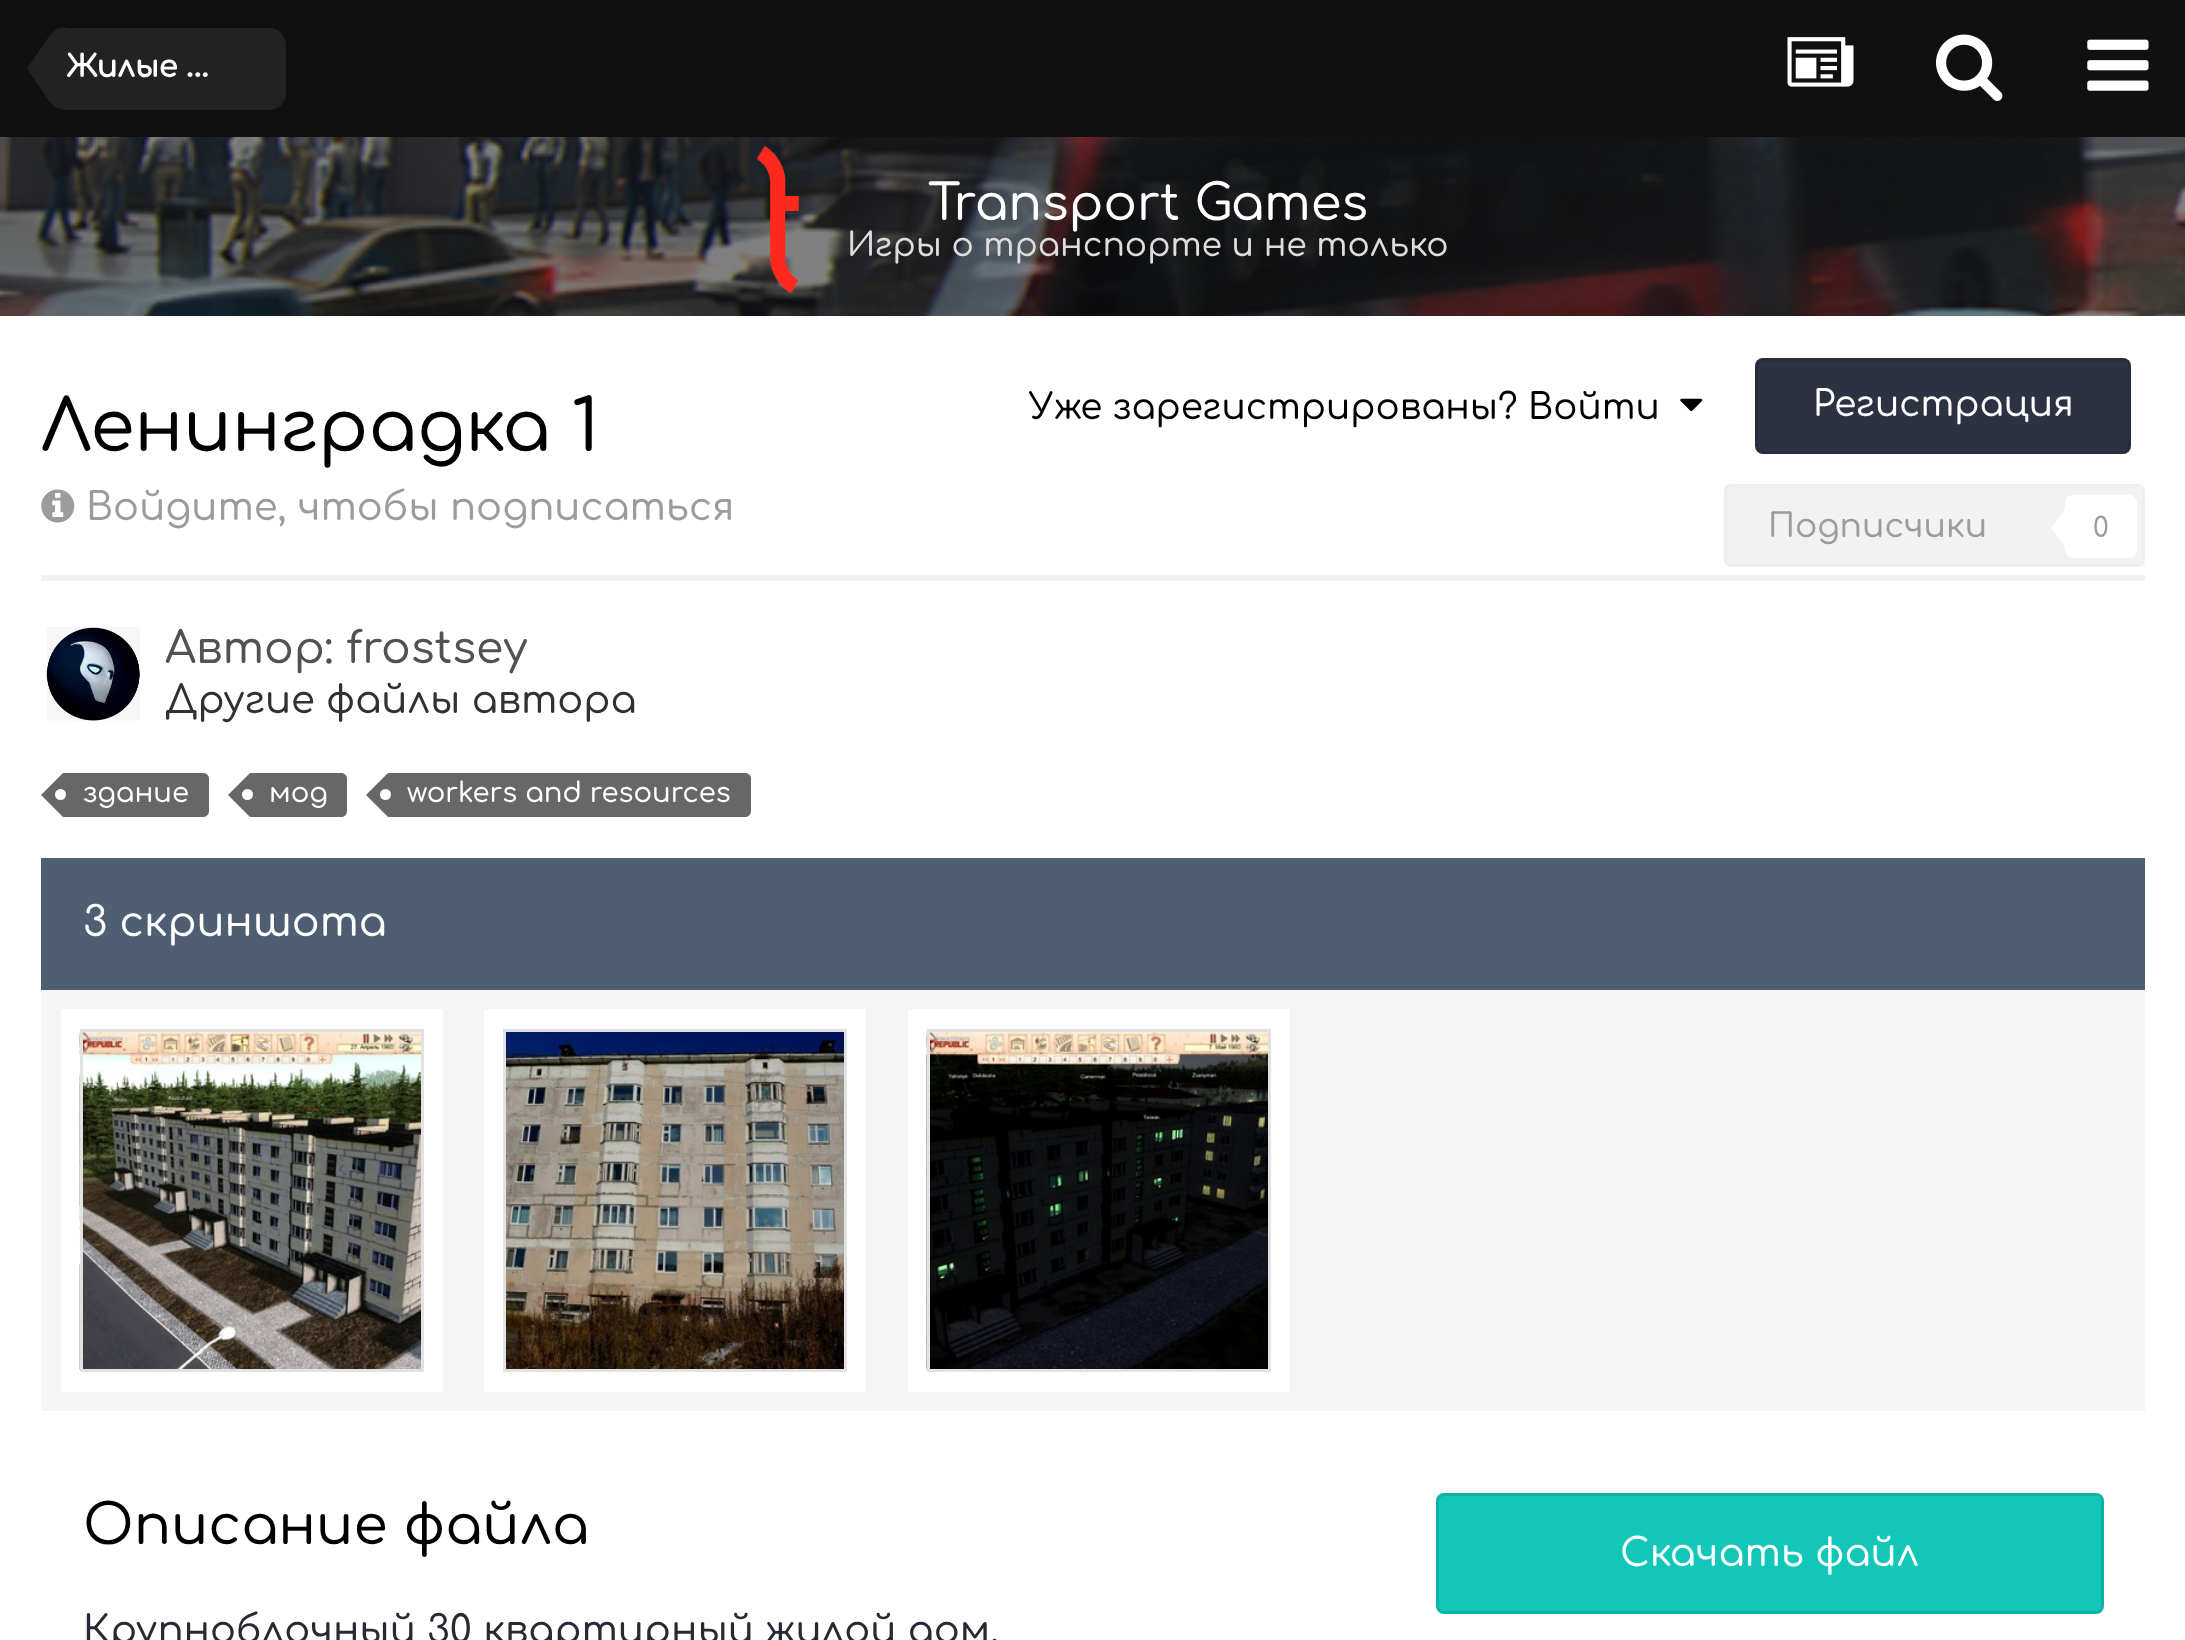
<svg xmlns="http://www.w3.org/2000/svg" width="2185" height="1640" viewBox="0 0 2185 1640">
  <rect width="100%" height="100%" fill="rgb(16,16,16)"/>
  <path d="M66 28H269C278.5 28 286 35.5 286 45V93C286 102.5 278.5 110 269 110H66Z" fill="rgb(34,34,34)"/>
  <path d="M28 69H66V110C59 110 52 106 47 98L28 70Z" fill="rgb(34,34,34)"/>
  <path d="M66 27V69H28V67L42 47C48 38 54 27 66 27Z" fill="rgb(34,34,34)"/>
  <text x="66" y="77" font-family="Comfortaa" font-size="30.25" font-weight="bold" fill="rgb(255,255,255)">Жилые ...</text>
  <image x="1787" y="37" width="67" height="50" href="pic1.png"/>
  <image x="1936" y="34" width="67" height="67" href="pic2.png"/>
  <image x="2087" y="39" width="62" height="52" href="pic3.png"/>
  <image x="0" y="137" width="2185" height="179" href="pic4.png"/>
  <image x="757" y="146" width="42" height="147" href="pic5.png"/>
  <text x="928" y="220" font-family="Comfortaa" font-size="49.5" font-weight="500" fill="rgb(255,255,255)">Transport Games</text>
  <text x="847" y="256" font-family="Comfortaa" font-size="33" font-weight="500" fill="rgb(221,221,221)">Игры о транспорте и не только</text>
  <rect x="0" y="316" width="2185" height="1324" fill="rgb(255,255,255)"/>
  <text x="1029" y="419" font-family="Comfortaa" font-size="35.75" font-weight="500" fill="rgb(0,0,0)">Уже зарегистрированы? Войти</text>
  <image x="1680" y="398" width="23" height="14" href="pic6.png"/>
  <rect x="1755" y="358" width="376" height="96" rx="8" fill="rgb(45,50,67)"/>
  <rect x="1756.5" y="359.5" width="373" height="93" rx="6.5" fill="none" stroke="rgba(0,0,0,0.1)" stroke-width="3"/>
  <text x="1813" y="416" font-family="Comfortaa" font-size="35.75" font-weight="500" fill="rgb(255,255,255)">Регистрация</text>
  <text x="41" y="451" font-family="Comfortaa" font-size="71.5" font-weight="500" fill="rgb(0,0,0)">Ленинградка 1</text>
  <image x="41" y="489" width="34" height="34" href="pic7.png"/>
  <text x="86" y="520" font-family="Comfortaa" font-size="38.5" font-weight="500" fill="rgb(156,156,156)">Войдите, чтобы подписаться</text>
  <rect x="1724" y="484" width="421" height="83" rx="8" fill="rgb(242,242,242)"/>
  <rect x="1725.5" y="485.5" width="418" height="80" fill="none" stroke="rgba(128,128,128,0.03)" stroke-width="3"/>
  <text x="1768" y="537" font-family="Comfortaa" font-size="33" font-weight="500" fill="rgb(156,156,156)">Подписчики</text>
  <rect x="2065" y="495" width="72" height="63" rx="8" fill="rgb(255,255,255)"/>
  <path d="M2065 509V547L2051.5 528Z" fill="rgb(255,255,255)"/>
  <text x="2093" y="537" font-family="Comfortaa" font-size="27.5" font-weight="500" fill="rgb(156,156,156)">0</text>
  <rect x="41" y="575" width="2104" height="6" fill="rgb(242,242,242)"/>
  <image x="46" y="627" width="95" height="94" href="pic8.png"/>
  <text x="165" y="663" font-family="Comfortaa" font-size="44" font-weight="500" fill="rgb(82,82,82)">Автор: frostsey</text>
  <text x="165" y="713" font-family="Comfortaa" font-size="38.5" font-weight="500" fill="rgb(49,49,49)">Другие файлы автора</text>
  <path d="M63 773H203C206.5 773 209 775.5 209 779V811C209 814.5 206.5 817 203 817H63Z" fill="rgb(103,103,103)"/>
  <path d="M63 773V817L41 795Z" fill="rgb(103,103,103)"/>
  <text x="83" y="802" font-family="Comfortaa" font-size="27.5" font-weight="500" fill="rgb(255,255,255)">здание</text>
  <circle cx="60.5" cy="794.5" r="5.5" fill="rgb(255,255,255)"/>
  <path d="M250 773H341C344.5 773 347 775.5 347 779V811C347 814.5 344.5 817 341 817H250Z" fill="rgb(103,103,103)"/>
  <path d="M250 773V817L228 795Z" fill="rgb(103,103,103)"/>
  <text x="269" y="802" font-family="Comfortaa" font-size="27.5" font-weight="500" fill="rgb(255,255,255)">мод</text>
  <circle cx="247.5" cy="794.5" r="5.5" fill="rgb(255,255,255)"/>
  <path d="M388 773H745C748.5 773 751 775.5 751 779V811C751 814.5 748.5 817 745 817H388Z" fill="rgb(103,103,103)"/>
  <path d="M388 773V817L366 795Z" fill="rgb(103,103,103)"/>
  <text x="407" y="802" font-family="Comfortaa" font-size="27.5" font-weight="500" fill="rgb(255,255,255)">workers and resources</text>
  <circle cx="385.5" cy="794.5" r="5.5" fill="rgb(255,255,255)"/>
  <rect x="41" y="858" width="2104" height="132" fill="rgb(78,95,116)"/>
  <text x="83" y="936" font-family="Comfortaa" font-size="41.25" font-weight="500" fill="rgb(255,255,255)">3 скриншота</text>
  <rect x="41" y="990" width="2104" height="421" fill="rgb(245,245,245)"/>
  <rect x="61" y="1009" width="382" height="383" fill="rgb(255,255,255)"/>
  <image x="79" y="1031" width="342" height="339" href="pic9.png"/>
  <rect x="81.5" y="1030.5" width="341" height="340" fill="none" stroke="rgb(226,226,226)" stroke-width="3"/>
  <rect x="484" y="1009" width="382" height="383" fill="rgb(255,255,255)"/>
  <image x="506" y="1032" width="338" height="337" href="pic10.png"/>
  <rect x="504.5" y="1030.5" width="341" height="340" fill="none" stroke="rgb(226,226,226)" stroke-width="3"/>
  <rect x="908" y="1009" width="382" height="383" fill="rgb(255,255,255)"/>
  <image x="926" y="1031" width="342" height="339" href="pic11.png"/>
  <rect x="928.5" y="1030.5" width="341" height="340" fill="none" stroke="rgb(226,226,226)" stroke-width="3"/>
  <text x="83" y="1544" font-family="Comfortaa" font-size="55" font-weight="500" fill="rgb(0,0,0)">Описание файла</text>
  <text x="83" y="1643" font-family="Comfortaa" font-size="38.5" font-weight="500" fill="rgb(39,42,52)">Крупноблочный 30 квартирный жилой дом,</text>
  <rect x="1436" y="1493" width="668" height="121" rx="8" fill="rgb(18,199,183)"/>
  <rect x="1437.5" y="1494.5" width="665" height="118" rx="6.5" fill="none" stroke="rgba(0,0,0,0.1)" stroke-width="3"/>
  <text x="1620" y="1566" font-family="Comfortaa" font-size="38.5" font-weight="500" fill="rgb(255,255,255)">Скачать файл</text>
</svg>
